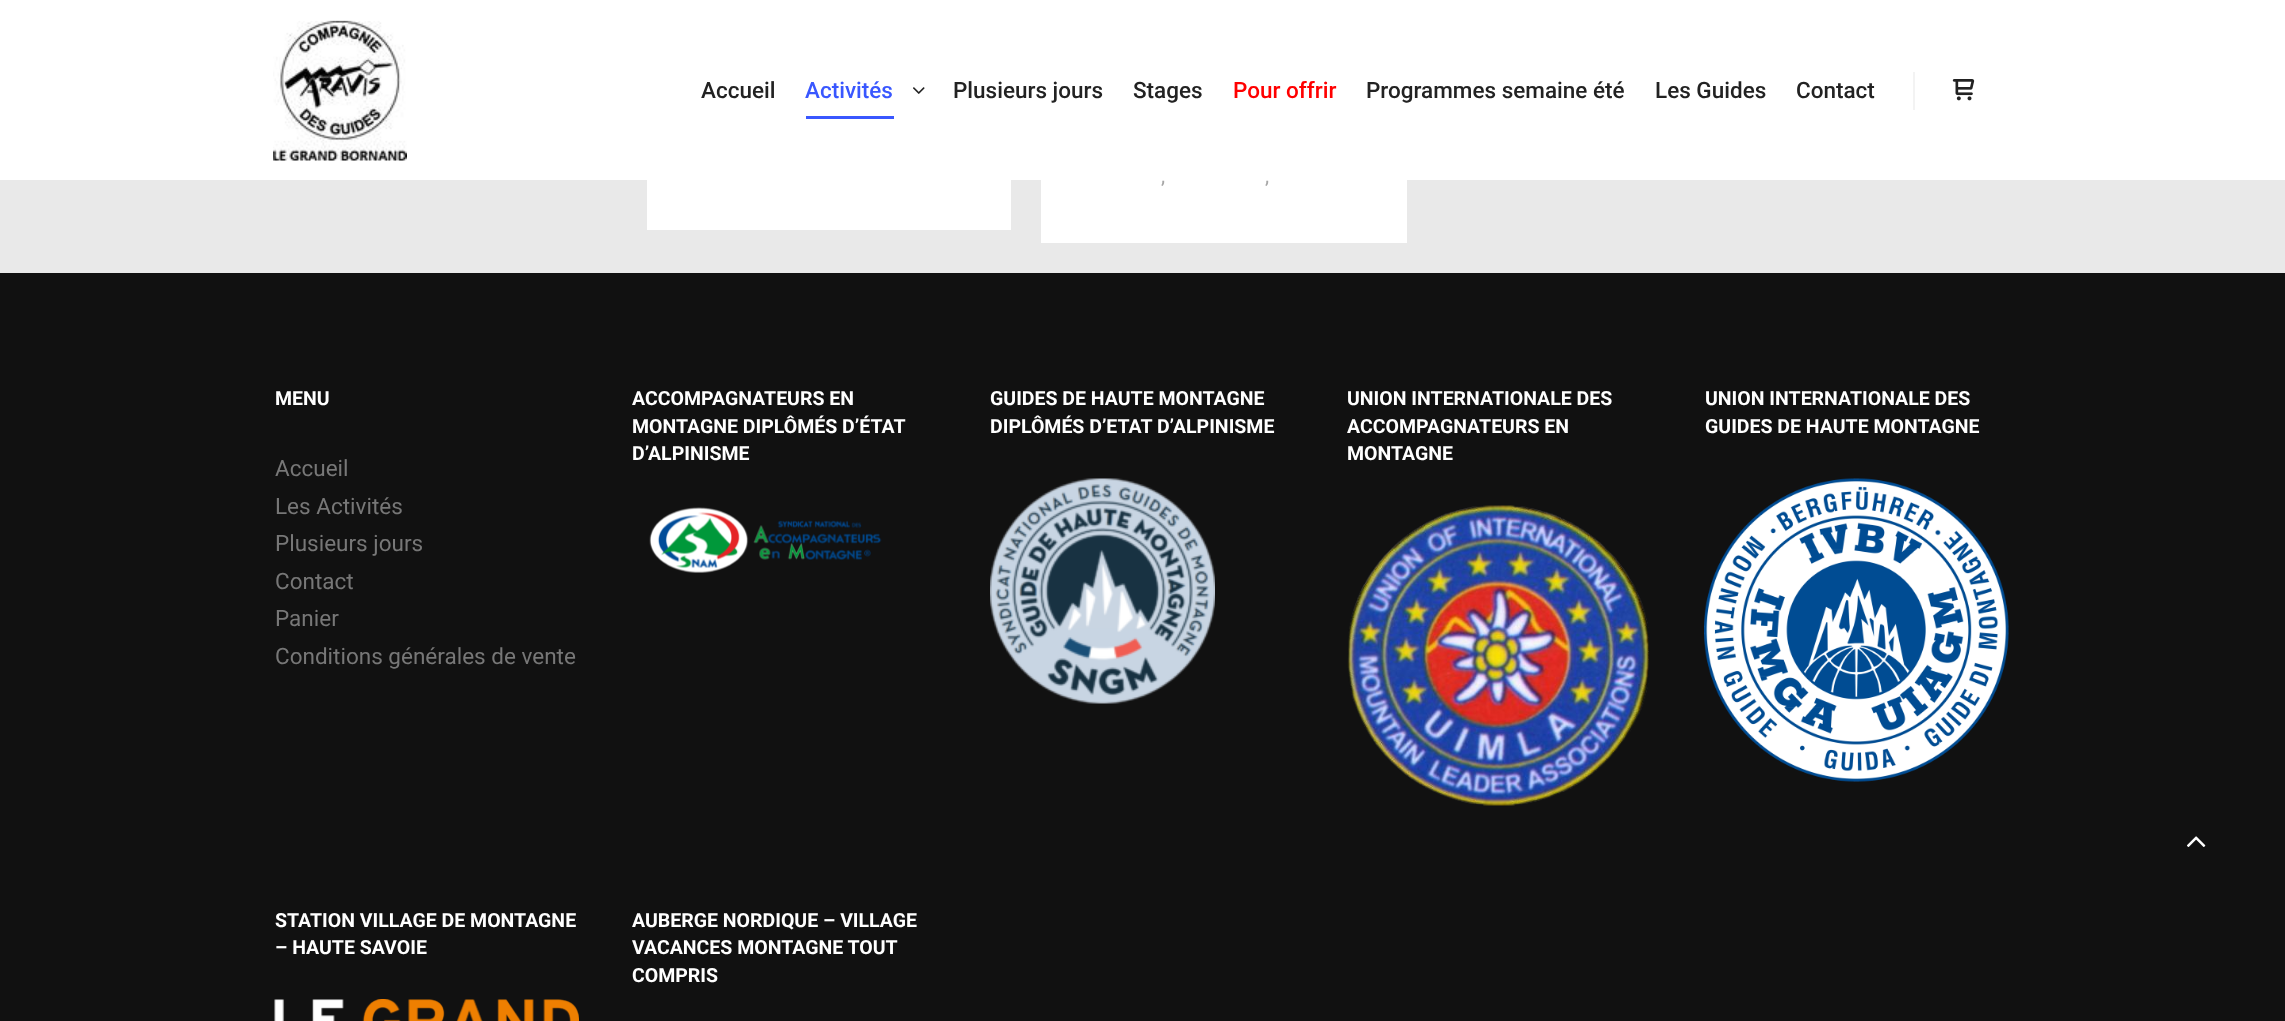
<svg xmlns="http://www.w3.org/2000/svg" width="2285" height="1021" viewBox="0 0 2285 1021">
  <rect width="100%" height="100%" fill="rgb(233,233,233)"/>
  <rect x="0" y="0" width="2285" height="180" fill="rgb(255,255,255)"/>
  <image x="273" y="20" width="134" height="141" href="pic1.png"/>
  <text x="701" y="98" font-family="Roboto" font-size="22.5" font-weight="500" fill="rgb(34,34,34)">Accueil</text>
  <text x="805" y="98" font-family="Roboto" font-size="22.5" font-weight="500" fill="rgb(57,87,255)">Activités</text>
  <rect x="806" y="116" width="88" height="3" fill="rgb(57,87,255)"/>
  <image x="913" y="87" width="12" height="7" href="pic2.png"/>
  <g font-family="Roboto" font-size="22.5" font-weight="500" fill="rgb(34,34,34)">
    <text x="953" y="98">Plusieurs jours</text>
    <text x="1133" y="98">Stages</text>
  </g>
  <text x="1233" y="98" font-family="Roboto" font-size="22.5" font-weight="500" fill="rgb(255,0,0)">Pour offrir</text>
  <g font-family="Roboto" font-size="22.5" font-weight="500" fill="rgb(34,34,34)">
    <text x="1366" y="98">Programmes semaine été</text>
    <text x="1655" y="98">Les Guides</text>
    <text x="1796" y="98">Contact</text>
  </g>
  <rect x="1913" y="72" width="2" height="38" fill="rgb(243,243,243)"/>
  <image x="1952" y="79" width="23" height="22" href="pic3.png"/>
  <rect x="647" y="180" width="364" height="50" fill="rgb(255,255,255)"/>
  <rect x="1041" y="180" width="366" height="63" fill="rgb(255,255,255)"/>
  <g font-family="Roboto" font-size="21" fill="rgb(167,167,167)">
    <text x="1161" y="183">,</text>
    <text x="1265" y="183">,</text>
  </g>
  <rect x="0" y="273" width="2285" height="748" fill="rgb(17,17,17)"/>
  <text x="275" y="405" font-family="Roboto" font-size="19.5" font-weight="bold" fill="rgb(255,255,255)">MENU</text>
  <g font-family="Roboto" font-size="22.5" fill="rgb(119,119,119)">
    <text>
      <tspan x="275" y="476">Accueil</tspan>
      <tspan x="275" y="514">Les Activités</tspan>
      <tspan x="275" y="551">Plusieurs jours</tspan>
      <tspan x="275" y="589">Contact</tspan>
      <tspan x="275" y="626">Panier</tspan>
      <tspan x="275" y="664">Conditions générales de vente</tspan>
    </text>
  </g>
  <g font-family="Roboto" font-size="19.5" font-weight="bold" fill="rgb(255,255,255)">
    <text>
      <tspan x="632" y="405">ACCOMPAGNATEURS EN</tspan>
      <tspan x="632" y="433">MONTAGNE DIPLÔMÉS D’ÉTAT</tspan>
      <tspan x="632" y="460">D’ALPINISME</tspan>
    </text>
  </g>
  <image x="649" y="507" width="233" height="66" href="pic4.png"/>
  <g font-family="Roboto" font-size="19.5" font-weight="bold" fill="rgb(255,255,255)">
    <text>
      <tspan x="990" y="405">GUIDES DE HAUTE MONTAGNE</tspan>
      <tspan x="990" y="433">DIPLÔMÉS D’ETAT D’ALPINISME</tspan>
    </text>
  </g>
  <image x="990" y="478" width="225" height="226" href="pic5.png"/>
  <g font-family="Roboto" font-size="19.5" font-weight="bold" fill="rgb(255,255,255)">
    <text>
      <tspan x="1347" y="405">UNION INTERNATIONALE DES</tspan>
      <tspan x="1347" y="433">ACCOMPAGNATEURS EN</tspan>
      <tspan x="1347" y="460">MONTAGNE</tspan>
    </text>
  </g>
  <image x="1347" y="505" width="303" height="301" href="pic6.png"/>
  <g font-family="Roboto" font-size="19.5" font-weight="bold" fill="rgb(255,255,255)">
    <text>
      <tspan x="1705" y="405">UNION INTERNATIONALE DES</tspan>
      <tspan x="1705" y="433">GUIDES DE HAUTE MONTAGNE</tspan>
    </text>
  </g>
  <image x="1704" y="478" width="305" height="304" href="pic7.png"/>
  <g font-family="Roboto" font-size="19.5" font-weight="bold" fill="rgb(255,255,255)">
    <text>
      <tspan x="275" y="927">STATION VILLAGE DE MONTAGNE</tspan>
      <tspan x="275" y="954">– HAUTE SAVOIE</tspan>
    </text>
  </g>
  <image x="274" y="999" width="305" height="22" href="pic8.png"/>
  <g font-family="Roboto" font-size="19.5" font-weight="bold" fill="rgb(255,255,255)">
    <text>
      <tspan x="632" y="927">AUBERGE NORDIQUE – VILLAGE</tspan>
      <tspan x="632" y="954">VACANCES MONTAGNE TOUT</tspan>
      <tspan x="632" y="982">COMPRIS</tspan>
    </text>
  </g>
  <image x="2187" y="836" width="19" height="11" href="pic9.png"/>
</svg>
